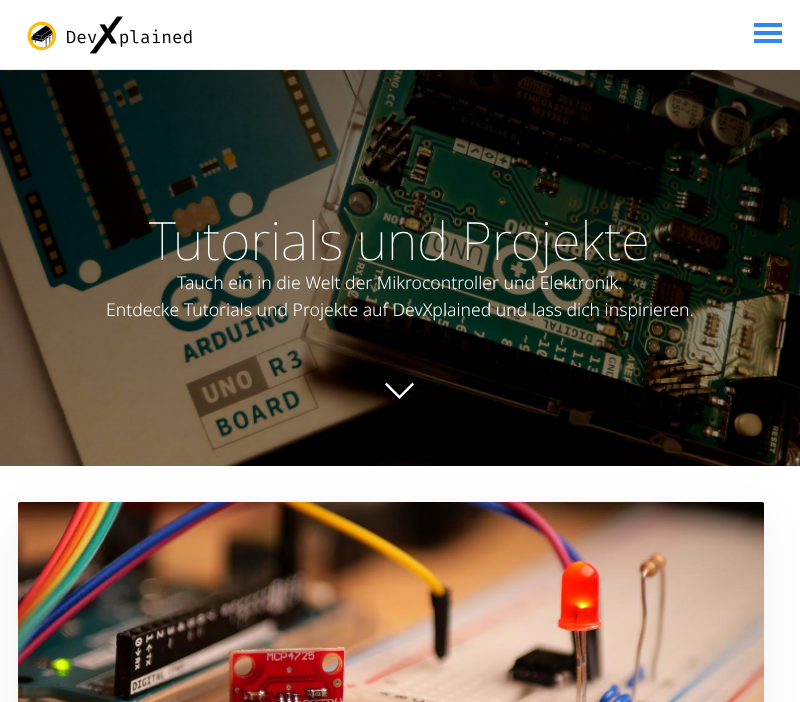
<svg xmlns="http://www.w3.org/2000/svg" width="800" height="702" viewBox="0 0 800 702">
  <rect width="100%" height="100%" fill="rgb(255,255,255)"/>
  <rect x="0" y="69" width="800" height="1" fill="rgb(238,240,243)"/>
  <image x="27" y="16" width="165" height="38" href="pic1.png"/>
  <rect x="754" y="23" width="28" height="4" fill="rgb(48,133,238)"/>
  <rect x="754" y="31" width="28" height="4" fill="rgb(48,133,238)"/>
  <rect x="754" y="39" width="28" height="4" fill="rgb(48,133,238)"/>
  <image x="0" y="70" width="800" height="396" href="pic2.png"/>
  <text x="149" y="260" font-family="Noto Sans" font-size="52.75" font-weight="100" fill="rgb(255,255,255)">Tutorials und Projekte</text>
  <g font-family="Noto Sans" font-size="17.6" font-weight="300" fill="rgb(255,255,255)">
    <text x="177" y="289">Tauch ein in die Welt der Mikrocontroller und Elektronik.</text>
    <text x="106" y="316">Entdecke Tutorials und Projekte auf DevXplained und lass dich inspirieren.</text>
  </g>
  <path d="M386.5 382.5L399.5 395.5L412.5 382.5L414 384.5L399.5 399L385 384.5Z" fill="rgb(255,255,255)"/>
  <rect x="27" y="521" width="728" height="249" fill="rgba(0,0,0,0.1)" filter="blur(22.5px)"/>
  <image x="18" y="502" width="746" height="200" href="pic3.png"/>
</svg>
